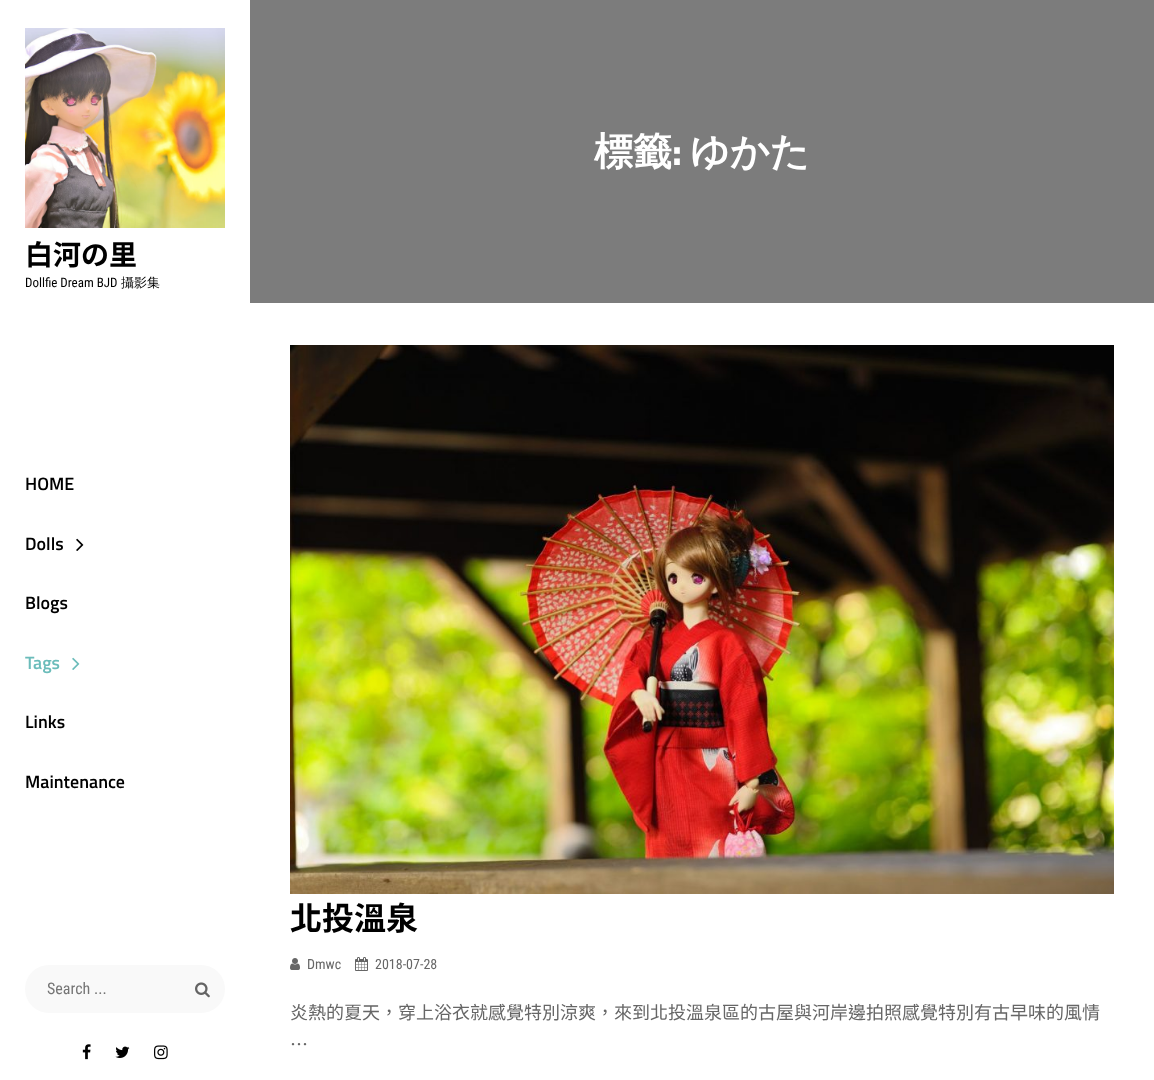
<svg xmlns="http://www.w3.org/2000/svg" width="1154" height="1080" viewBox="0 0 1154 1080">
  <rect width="100%" height="100%" fill="rgb(255,255,255)"/>
  <image x="25" y="28" width="200" height="200" href="pic1.png"/>
  <text x="25" y="265" font-family="Noto Sans TC" font-size="28" font-weight="bold" fill="rgb(0,0,0)">白河の里</text>
  <text x="25" y="287" font-family="Roboto Condensed" font-size="13" fill="rgb(0,0,0)">Dollfie Dream BJD</text>
  <text x="121" y="287" font-family="WenQuanYi Zen Hei" font-size="13" font-weight="500" fill="rgb(0,0,0)">攝影集</text>
  <g font-family="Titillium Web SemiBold" font-size="18" font-weight="600" fill="rgb(0,0,0)">
    <text x="25" y="490">HOME</text>
    <text x="25" y="550">Dolls</text>
  </g>
  <image x="76" y="538" width="8" height="13" href="pic2.png"/>
  <text x="25" y="609" font-family="Titillium Web SemiBold" font-size="18" font-weight="600" fill="rgb(0,0,0)">Blogs</text>
  <text x="25" y="669" font-family="Titillium Web SemiBold" font-size="18" font-weight="600" fill="rgb(107,188,186)">Tags</text>
  <image x="72" y="657" width="8" height="13" href="pic3.png"/>
  <g font-family="Titillium Web SemiBold" font-size="18" font-weight="600" fill="rgb(0,0,0)">
    <text x="25" y="728">Links</text>
    <text x="25" y="788">Maintenance</text>
  </g>
  <rect x="25" y="965" width="200" height="48" rx="24" fill="rgb(249,249,249)"/>
  <text x="47" y="994" font-family="Roboto Condensed" font-size="16" fill="rgb(117,117,117)">Search ...</text>
  <image x="195" y="982" width="15" height="16" href="pic4.png"/>
  <image x="82" y="1044" width="9" height="16" href="pic5.png"/>
  <image x="115" y="1046" width="15" height="12" href="pic6.png"/>
  <image x="154" y="1045" width="14" height="15" href="pic7.png"/>
  <rect x="250" y="0" width="904" height="303" fill="rgb(124,124,124)"/>
  <text x="594" y="165" font-family="WenQuanYi Zen Hei" font-size="39" font-weight="bold" fill="rgb(255,255,255)">標籤</text>
  <text x="672" y="165" font-family="Titillium Web" font-size="39" font-weight="bold" fill="rgb(255,255,255)">:</text>
  <text x="690" y="165" font-family="WenQuanYi Zen Hei" font-size="39" font-weight="bold" fill="rgb(255,255,255)">ゆかた</text>
  <image x="290" y="345" width="824" height="549" href="pic8.png"/>
  <text x="290" y="930" font-family="Noto Sans TC" font-size="32" font-weight="bold" fill="rgb(0,0,0)">北投溫泉</text>
  <image x="290" y="958" width="10" height="12" href="pic9.png"/>
  <text x="307" y="969" font-family="Roboto Condensed" font-size="14" fill="rgb(102,102,102)">Dmwc</text>
  <image x="355" y="957" width="13" height="14" href="pic10.png"/>
  <text x="375" y="969" font-family="Roboto Condensed" font-size="14" fill="rgb(102,102,102)">2018-07-28</text>
  <g font-family="Noto Sans TC" font-size="18" fill="rgb(102,102,102)">
    <text>
      <tspan x="290" y="1019">炎熱的夏天，穿上浴衣就感覺特別涼爽，來到北投溫泉區的古屋與河岸邊拍照感覺特別有古早味的風情</tspan>
      <tspan x="290" y="1051">…</tspan>
    </text>
  </g>
</svg>
